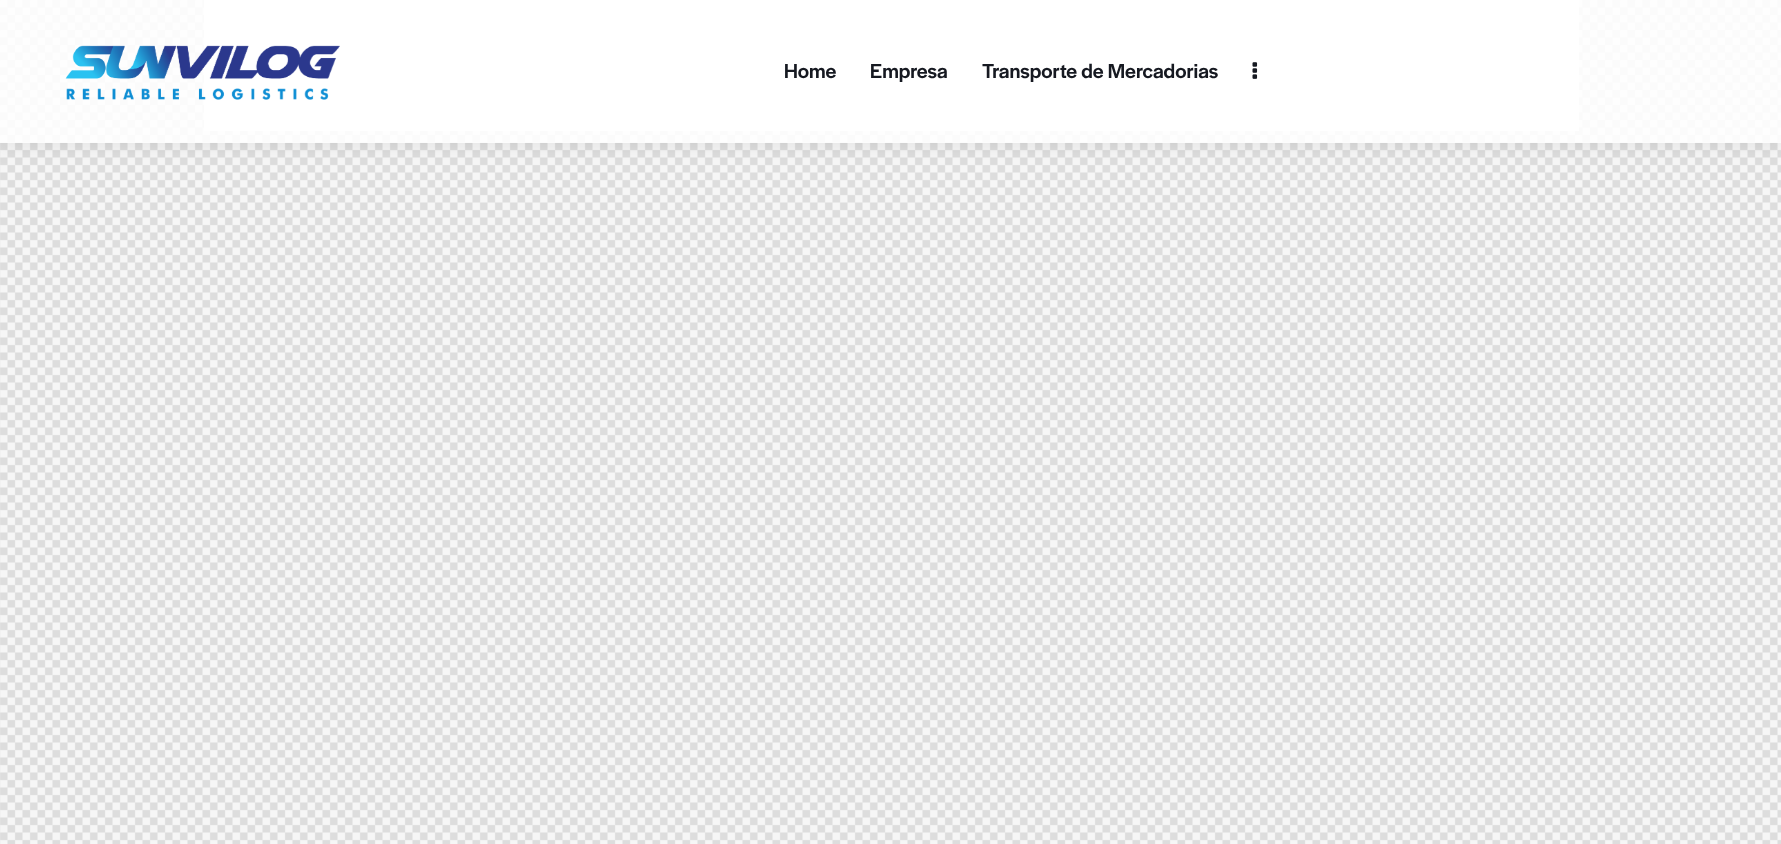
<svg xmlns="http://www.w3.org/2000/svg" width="1781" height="844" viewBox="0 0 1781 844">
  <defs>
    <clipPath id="clip1"><path d="M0 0H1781V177H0ZM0 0H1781V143H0Z" clip-rule="evenodd"/></clipPath>
  </defs>
  <rect width="100%" height="100%" fill="rgb(255,255,255)"/>
  <image x="0" y="0" width="1781" height="844" href="pic1.png"/>
  <rect x="204" y="0" width="1375" height="131" fill="rgba(255,255,255,0.87)"/>
  <g clip-path="url(#clip1)">
    <rect x="0" y="4" width="1781" height="142" fill="rgba(0,0,0,0.08)" filter="blur(10px)"/>
  </g>
  <rect x="0" y="0" width="1781" height="143" fill="rgba(255,255,255,0.87)"/>
  <image x="65" y="45" width="275" height="55" href="pic2.png"/>
  <g font-family="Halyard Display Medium" font-size="21.25" font-weight="500" fill="rgb(22,25,33)">
    <text x="784" y="78">Home</text>
    <text x="870" y="78">Empresa</text>
    <text x="982" y="78">Transporte de Mercadorias</text>
  </g>
  <image x="1252" y="62" width="6" height="17" href="pic3.png"/>
</svg>
